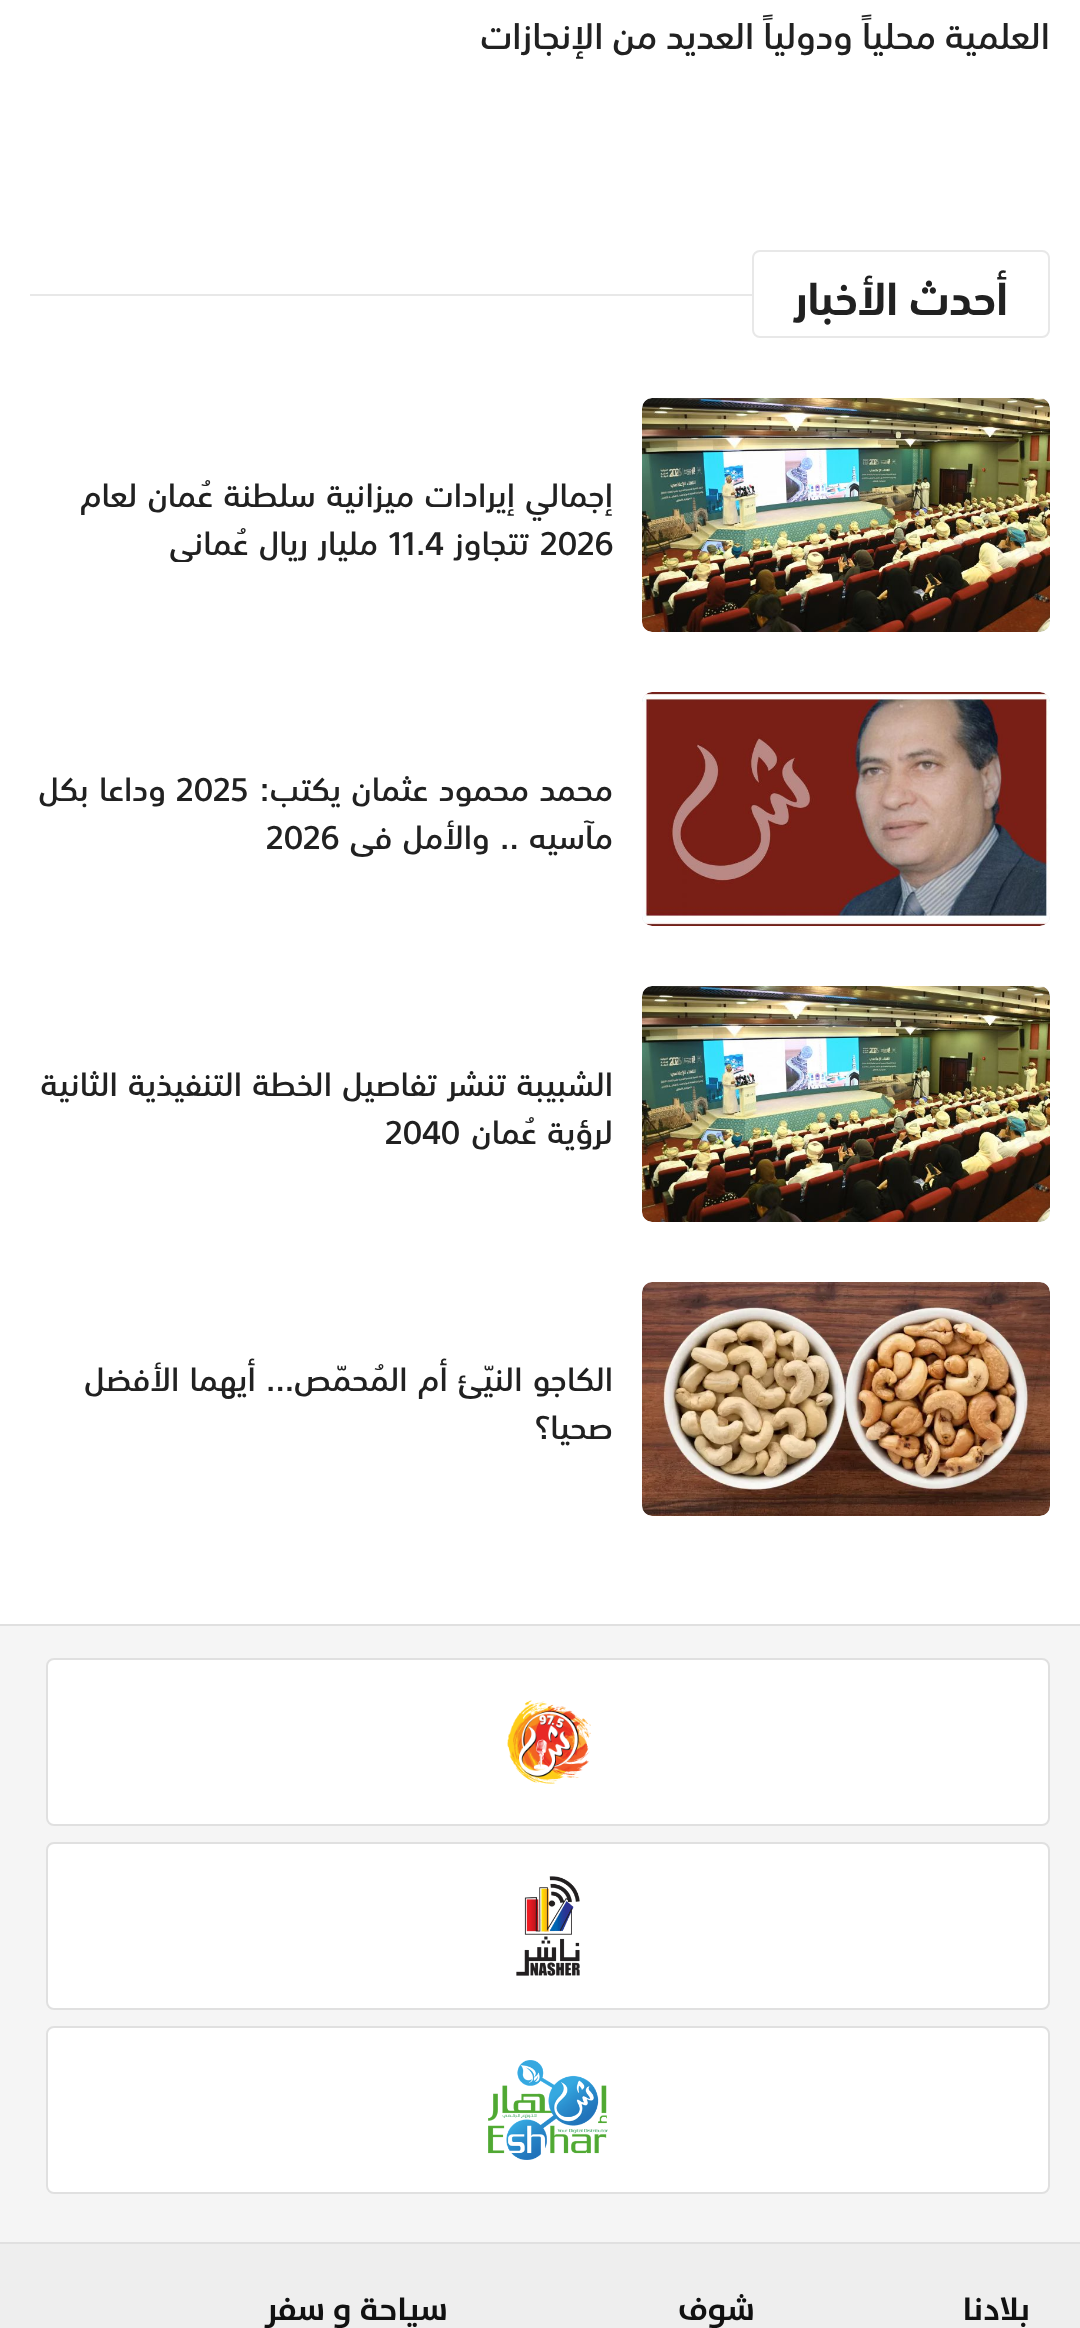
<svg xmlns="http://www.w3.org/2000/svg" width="1080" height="2328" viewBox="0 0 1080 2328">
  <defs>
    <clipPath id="clip1"><rect x="30" y="466" width="584" height="96"/></clipPath>
    <clipPath id="clip2"><rect x="30" y="762" width="584" height="96"/></clipPath>
  </defs>
  <rect width="100%" height="100%" fill="rgb(255,255,255)"/>
  <text x="1050" y="49" font-family="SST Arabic" font-size="35.25" font-weight="500" direction="rtl" fill="rgb(33,33,33)">العلمية محلياً ودولياً العديد من الإنجازات</text>
  <rect x="753" y="251" width="296" height="86" rx="7" fill="none" stroke="rgb(232,232,232)" stroke-width="2"/>
  <text x="1008" y="315" font-family="SST Arabic" font-size="44" font-weight="bold" direction="rtl" fill="rgb(33,33,33)">أحدث الأخبار</text>
  <rect x="30" y="294" width="722" height="2" fill="rgb(232,232,232)"/>
  <rect x="642" y="398" width="408" height="234" rx="10" fill="rgb(232,232,232)"/>
  <image x="642" y="398" width="408" height="234" href="pic1.png"/>
  <text x="613" y="507" word-spacing="2" font-family="SST Arabic" font-size="32" font-weight="500" direction="rtl" fill="rgb(33,33,33)">إجمالي إيرادات ميزانية سلطنة عُمان لعام</text>
  <text x="540" y="555" font-family="SST Arabic" font-size="32" font-weight="500" fill="rgb(33,33,33)">2026</text>
  <text x="529" y="555" font-family="SST Arabic" font-size="32" font-weight="500" direction="rtl" fill="rgb(33,33,33)">تتجاوز</text>
  <text x="389" y="555" font-family="SST Arabic" font-size="32" font-weight="500" fill="rgb(33,33,33)">11.4</text>
  <g clip-path="url(#clip1)">
    <text x="378" y="555" word-spacing="2" font-family="SST Arabic" font-size="32" font-weight="500" direction="rtl" fill="rgb(33,33,33)">مليار ريال عُماني</text>
  </g>
  <rect x="642" y="692" width="408" height="234" rx="10" fill="rgb(232,232,232)"/>
  <image x="642" y="692" width="408" height="234" href="pic2.png"/>
  <text x="613" y="801" word-spacing="2" font-family="SST Arabic" font-size="32" font-weight="500" direction="rtl" fill="rgb(33,33,33)">محمد محمود عثمان يكتب:</text>
  <text x="176" y="801" font-family="SST Arabic" font-size="32" font-weight="500" fill="rgb(33,33,33)">2025</text>
  <text x="166" y="801" word-spacing="2" font-family="SST Arabic" font-size="32" font-weight="500" direction="rtl" fill="rgb(33,33,33)">وداعا بكل</text>
  <g clip-path="url(#clip2)">
    <text x="613" y="849" word-spacing="2" font-family="SST Arabic" font-size="32" font-weight="500" direction="rtl" fill="rgb(33,33,33)">مآسيه .. والأمل في</text>
  </g>
  <text x="266" y="849" font-family="SST Arabic" font-size="32" font-weight="500" fill="rgb(33,33,33)">2026</text>
  <rect x="642" y="986" width="408" height="236" rx="10" fill="rgb(232,232,232)"/>
  <image x="642" y="986" width="408" height="236" href="pic3.png"/>
  <g font-family="SST Arabic" font-size="32" font-weight="500" direction="rtl" fill="rgb(33,33,33)">
    <text>
      <tspan x="613" y="1096" word-spacing="2">الشبيبة تنشر تفاصيل الخطة التنفيذية الثانية</tspan>
      <tspan x="613" y="1144" word-spacing="2">لرؤية عُمان</tspan>
    </text>
  </g>
  <text x="385" y="1144" font-family="SST Arabic" font-size="32" font-weight="500" fill="rgb(33,33,33)">2040</text>
  <rect x="642" y="1282" width="408" height="234" rx="10" fill="rgb(232,232,232)"/>
  <image x="642" y="1282" width="408" height="234" href="pic4.png"/>
  <g font-family="SST Arabic" font-size="32" font-weight="500" direction="rtl" fill="rgb(33,33,33)">
    <text>
      <tspan x="613" y="1391" word-spacing="2">الكاجو النيّئ أم المُحمّص... أيهما الأفضل</tspan>
      <tspan x="613" y="1439">صحيا؟</tspan>
    </text>
  </g>
  <rect x="0" y="1626" width="1080" height="616" fill="rgb(245,245,245)"/>
  <rect x="0" y="1624" width="1080" height="2" fill="rgb(224,224,224)"/>
  <rect x="47" y="1659" width="1002" height="166" rx="7" fill="rgb(255,255,255)" stroke="rgb(224,224,224)" stroke-width="2"/>
  <image x="507" y="1700" width="84" height="84" href="pic5.png"/>
  <rect x="47" y="1843" width="1002" height="166" rx="7" fill="rgb(255,255,255)" stroke="rgb(224,224,224)" stroke-width="2"/>
  <image x="516" y="1876" width="64" height="100" href="pic6.png"/>
  <rect x="47" y="2027" width="1002" height="166" rx="7" fill="rgb(255,255,255)" stroke="rgb(224,224,224)" stroke-width="2"/>
  <image x="488" y="2060" width="120" height="100" href="pic7.png"/>
  <rect x="0" y="2244" width="1080" height="84" fill="rgb(238,238,238)"/>
  <rect x="0" y="2242" width="1080" height="2" fill="rgb(224,224,224)"/>
  <g font-family="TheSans" font-size="32" font-weight="bold" direction="rtl" fill="rgb(17,17,17)">
    <text x="1030" y="2320">بلادنا</text>
    <text x="755" y="2320">شوف</text>
    <text x="448" y="2320">سياحة و سفر</text>
  </g>
</svg>
